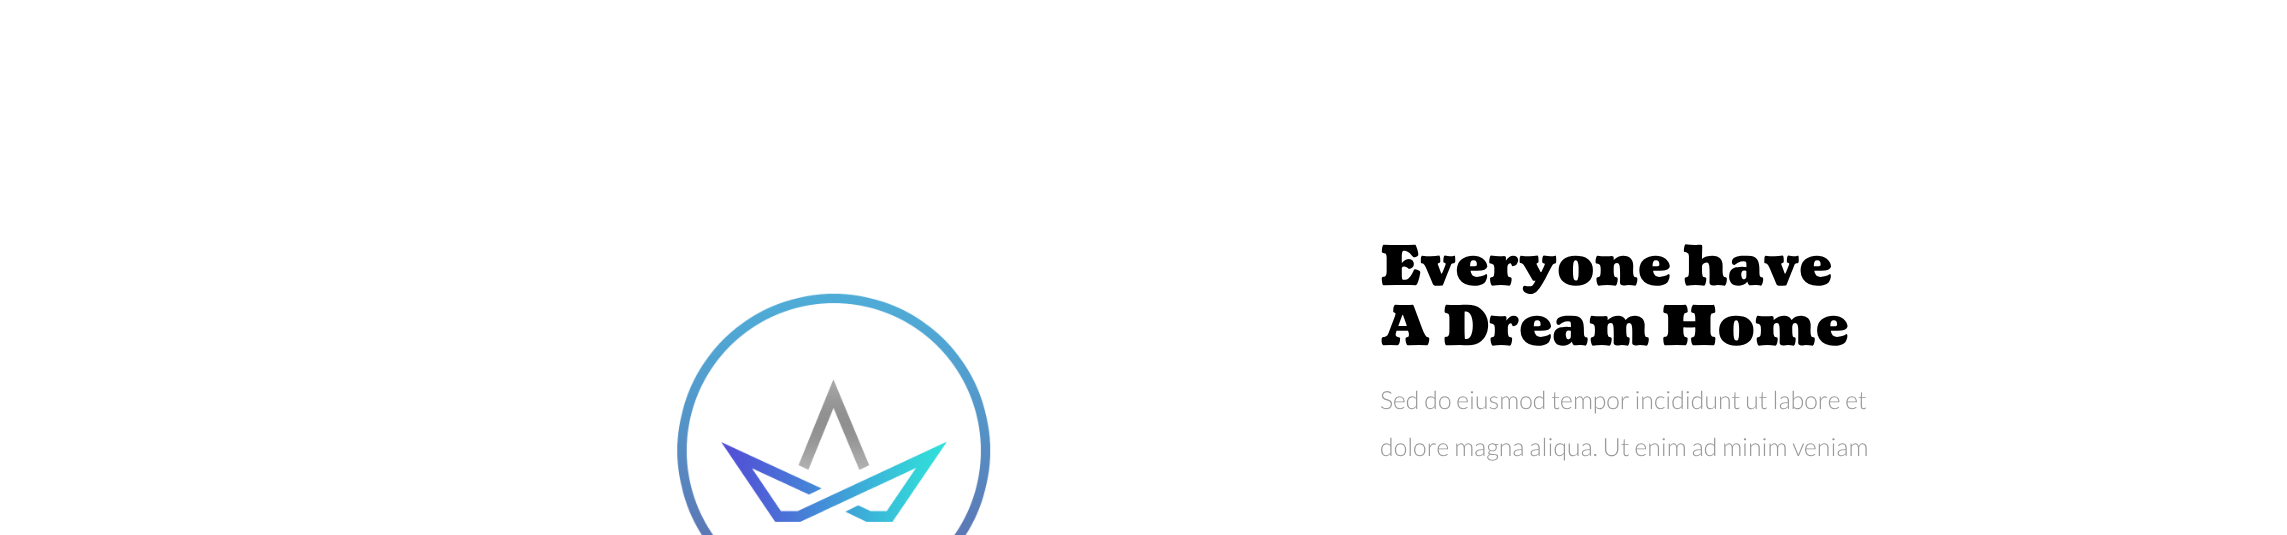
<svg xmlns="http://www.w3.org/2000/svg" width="2287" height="535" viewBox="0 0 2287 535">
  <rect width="100%" height="100%" fill="rgb(255,255,255)"/>
  <image x="677" y="293" width="314" height="242" href="pic1.png"/>
  <g font-family="Coustard" font-size="55" font-weight="900" fill="rgb(0,0,0)">
    <text>
      <tspan x="1380" y="285">Everyone have</tspan>
      <tspan x="1380" y="345">A Dream Home</tspan>
    </text>
  </g>
  <g font-family="Lato" font-size="25" font-weight="300" fill="rgb(153,153,153)">
    <text>
      <tspan x="1380" y="409">Sed do eiusmod tempor incididunt ut labore et</tspan>
      <tspan x="1380" y="456">dolore magna aliqua. Ut enim ad minim veniam</tspan>
    </text>
  </g>
</svg>
